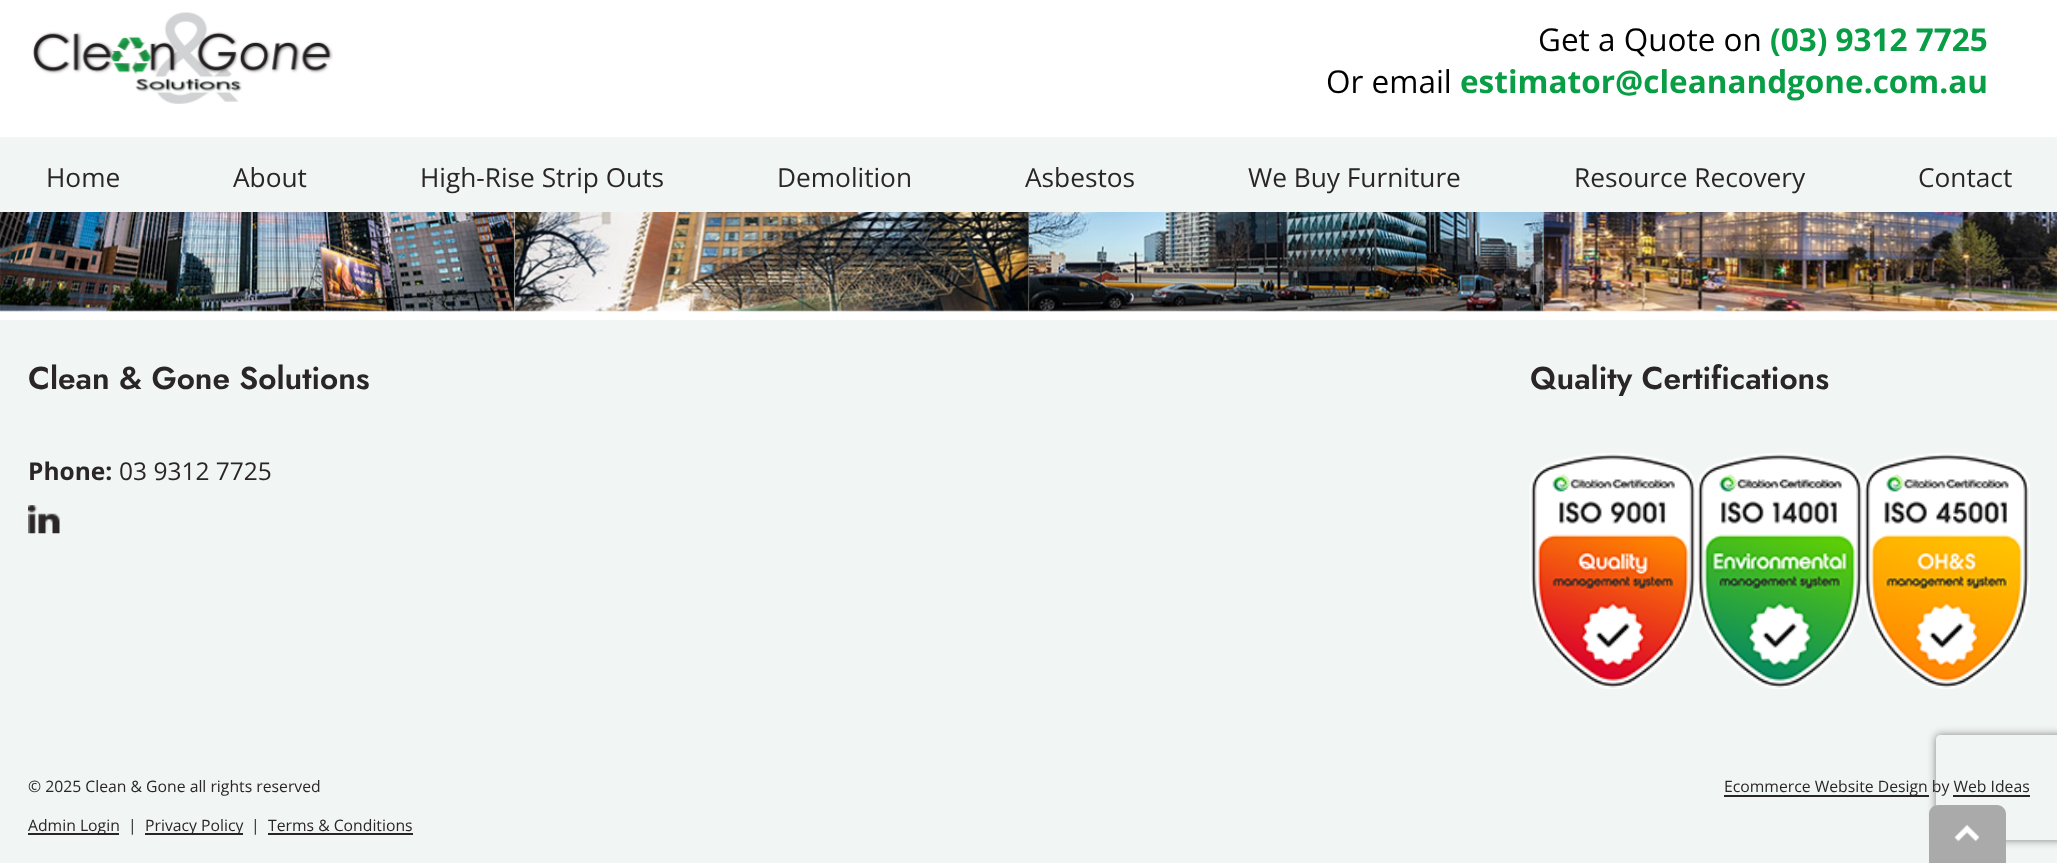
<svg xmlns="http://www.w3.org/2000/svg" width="2057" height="863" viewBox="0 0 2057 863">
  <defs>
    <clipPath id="clip1"><path d="M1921 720H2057V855H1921ZM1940 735H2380C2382 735 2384 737 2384 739V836C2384 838 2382 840 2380 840H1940C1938 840 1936 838 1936 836V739C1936 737 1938 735 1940 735Z" clip-rule="evenodd"/></clipPath>
  </defs>
  <rect width="100%" height="100%" fill="rgb(255,255,255)"/>
  <image x="32" y="12" width="301" height="92" href="pic1.png"/>
  <text x="1538" y="51" font-family="Open Sans" font-size="31.5" fill="rgb(0,0,0)">Get a Quote on</text>
  <text x="1770" y="51" font-family="Open Sans" font-size="31.5" font-weight="bold" fill="rgb(9,157,70)">(03) 9312 7725</text>
  <text x="1326" y="93" font-family="Open Sans" font-size="31.5" fill="rgb(0,0,0)">Or email</text>
  <text x="1460" y="93" font-family="Open Sans" font-size="31.5" font-weight="bold" fill="rgb(9,157,70)">estimator@cleanandgone.com.au</text>
  <rect x="0" y="137" width="2057" height="75" fill="rgb(241,246,244)"/>
  <g font-family="Open Sans" font-size="26.25" fill="rgb(42,38,40)">
    <text x="46" y="187">Home</text>
    <text x="233" y="187">About</text>
    <text x="420" y="187">High-Rise Strip Outs</text>
    <text x="777" y="187">Demolition</text>
    <text x="1025" y="187">Asbestos</text>
    <text x="1248" y="187">We Buy Furniture</text>
    <text x="1574" y="187">Resource Recovery</text>
    <text x="1918" y="187">Contact</text>
  </g>
  <image x="0" y="212" width="515" height="100" href="pic2.png"/>
  <image x="515" y="212" width="515" height="100" href="pic3.png"/>
  <image x="1029" y="212" width="515" height="100" href="pic4.png"/>
  <image x="1543" y="212" width="514" height="100" href="pic5.png"/>
  <rect x="0" y="320" width="2057" height="543" fill="rgb(241,246,244)"/>
  <rect x="1724" y="795" width="205" height="2" fill="rgb(42,38,40)"/>
  <rect x="1953" y="795" width="77" height="2" fill="rgb(42,38,40)"/>
  <g clip-path="url(#clip1)">
    <rect x="1936" y="735" width="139" height="105" rx="4" fill="rgb(128,128,128)" filter="blur(4.5px)"/>
  </g>
  <text x="28" y="389" font-family="Jost" font-size="31.5" font-weight="600" fill="rgb(42,38,40)">Clean &amp; Gone Solutions</text>
  <text x="28" y="480" font-family="Open Sans" font-size="24.5" font-weight="bold" fill="rgb(42,38,40)">Phone:</text>
  <text x="119" y="480" font-family="Open Sans" font-size="24.5" fill="rgb(42,38,40)">03 9312 7725</text>
  <image x="28" y="505" width="32" height="29" href="pic6.png"/>
  <text x="1530" y="389" font-family="Jost" font-size="31.5" font-weight="600" fill="rgb(42,38,40)">Quality Certifications</text>
  <image x="1529" y="453" width="501" height="236" href="pic7.png"/>
  <text x="28" y="792" font-family="Open Sans" font-size="15.75" fill="rgb(42,38,40)">© 2025 Clean &amp; Gone all rights reserved</text>
  <rect x="28" y="833" width="91" height="2" fill="rgb(42,38,40)"/>
  <g font-family="Open Sans" font-size="15.75" fill="rgb(42,38,40)">
    <text x="28" y="831">Admin Login</text>
    <text x="128" y="831">|</text>
  </g>
  <rect x="145" y="833" width="98" height="2" fill="rgb(42,38,40)"/>
  <g font-family="Open Sans" font-size="15.75" fill="rgb(42,38,40)">
    <text x="145" y="831">Privacy Policy</text>
    <text x="251" y="831">|</text>
    <text x="268" y="831">Terms &amp; Conditions</text>
  </g>
  <rect x="268" y="833" width="145" height="2" fill="rgb(42,38,40)"/>
  <text x="1724" y="792" font-family="Open Sans" font-size="15.75" fill="rgb(42,38,40)">Ecommerce Website Design by Web Ideas</text>
  <path d="M1938 805H1997C2002 805 2006 809 2006 814V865H1929V814C1929 809 1933 805 1938 805Z" fill="rgb(170,170,170)"/>
  <image x="1954" y="824" width="26" height="18" href="pic8.png"/>
</svg>
